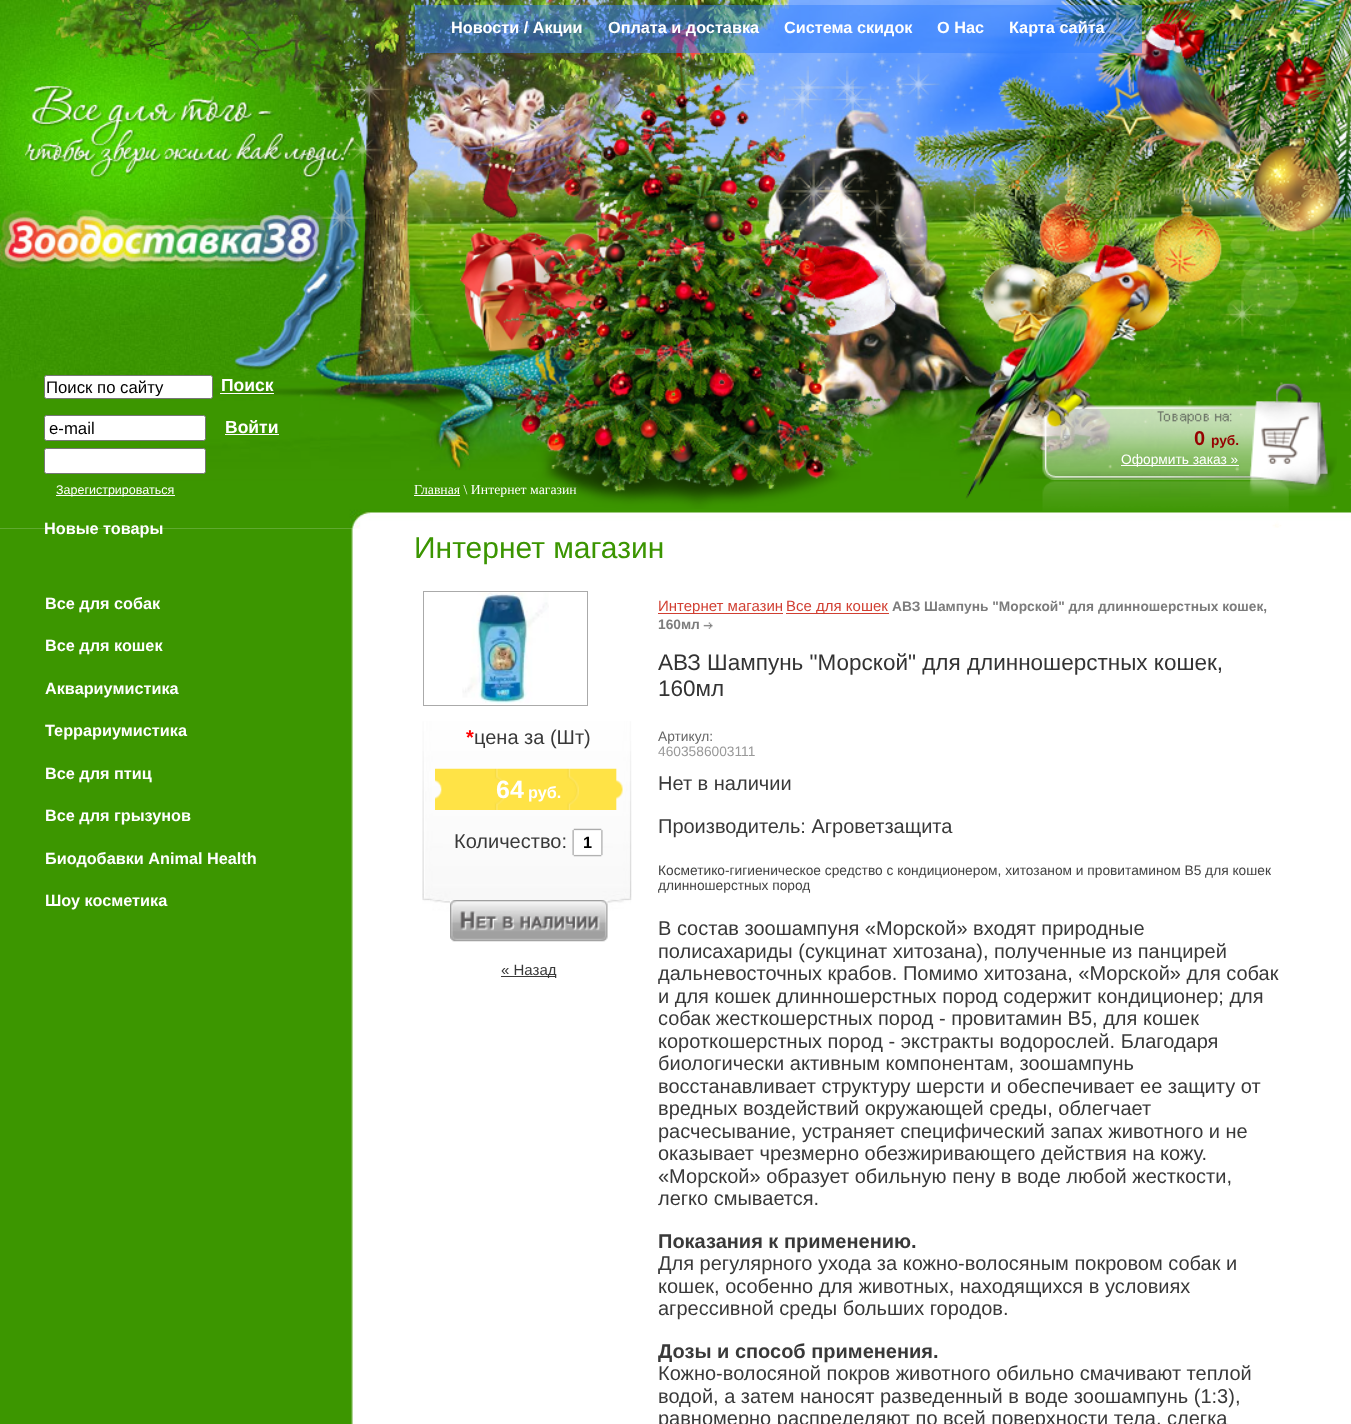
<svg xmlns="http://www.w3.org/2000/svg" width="1351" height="1424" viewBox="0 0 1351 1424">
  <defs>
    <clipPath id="clip1"><rect x="46" y="378" width="164" height="18"/></clipPath>
  </defs>
  <rect width="100%" height="100%" fill="rgb(255,255,255)"/>
  <image x="0" y="528" width="353" height="896" href="pic1.png"/>
  <image x="0" y="528" width="1351" height="1" href="pic2.png"/>
  <image x="0" y="0" width="1351" height="529" href="pic3.png"/>
  <rect x="414" y="495" width="46" height="1" fill="rgb(255,255,255)"/>
  <text x="414" y="494" font-family="Liberation Serif" font-size="13.75" fill="rgb(255,255,255)">Главная \ Интернет магазин</text>
  <image x="290" y="47" width="1061" height="481" href="pic6.png"/>
  <image x="460" y="141" width="736" height="242" href="pic7.png"/>
  <image x="912" y="0" width="439" height="326" href="pic4.png"/>
  <image x="495" y="0" width="390" height="509" href="pic5.png"/>
  <rect x="415" y="5" width="727" height="48" fill="rgba(49,126,255,0.49)"/>
  <g font-family="Liberation Sans" font-size="16.25" font-weight="bold" fill="rgb(255,255,255)">
    <text x="451" y="33">Новости / Акции</text>
    <text x="608" y="33">Оплата и доставка</text>
    <text x="784" y="33">Система скидок</text>
    <text x="937" y="33">О Нас</text>
    <text x="1009" y="33">Карта сайта</text>
  </g>
  <image x="965" y="269" width="372" height="242" href="pic8.png"/>
  <image x="1089" y="243" width="50" height="41" href="pic9.png"/>
  <text x="1194" y="445" font-family="Liberation Sans" font-size="20" font-weight="bold" fill="rgb(150,1,1)">0</text>
  <text x="1211" y="445" font-family="Liberation Sans" font-size="13.75" font-weight="bold" fill="rgb(150,1,1)">руб.</text>
  <rect x="1121" y="465" width="118" height="1" fill="rgb(255,255,255)"/>
  <text x="1121" y="464" font-family="Liberation Sans" font-size="13.75" fill="rgb(255,255,255)">Оформить заказ »</text>
  <g font-family="Liberation Sans" font-size="16.25" font-weight="bold" fill="rgb(255,255,255)">
    <text x="44" y="534">Новые товары</text>
    <text x="45" y="609">Все для собак</text>
    <text x="45" y="651">Все для кошек</text>
    <text x="45" y="694">Аквариумистика</text>
    <text x="45" y="736">Террариумистика</text>
    <text x="45" y="779">Все для птиц</text>
    <text x="45" y="821">Все для грызунов</text>
    <text x="45" y="864">Биодобавки Animal Health</text>
    <text x="45" y="906">Шоу косметика</text>
  </g>
  <text x="414" y="558" font-family="Liberation Sans" font-size="30" fill="rgb(59,149,0)">Интернет магазин</text>
  <image x="422" y="721" width="210" height="192" href="pic10.png"/>
  <rect x="423.5" y="591.5" width="164" height="114" fill="none" stroke="rgb(170,170,170)"/>
  <image x="462" y="592" width="87" height="112" href="pic11.png"/>
  <text x="466" y="744" font-family="Liberation Sans" font-size="20" font-weight="bold" fill="rgb(255,0,0)">*</text>
  <text x="474" y="744" font-family="Liberation Sans" font-size="20" fill="rgb(57,57,57)">цена за (Шт)</text>
  <image x="435" y="768" width="188" height="42" href="pic12.png"/>
  <text x="496" y="798" font-family="Liberation Sans" font-size="25" font-weight="bold" fill="rgb(255,255,255)">64</text>
  <text x="528" y="798" font-family="Liberation Sans" font-size="16.25" font-weight="bold" fill="rgb(255,255,255)">руб.</text>
  <text x="454" y="848" font-family="Liberation Sans" font-size="20" fill="rgb(57,57,57)">Количество:</text>
  <image x="572" y="828" width="31" height="29" href="pic13.png"/>
  <text x="583" y="848" font-family="Liberation Sans" font-size="16.25" font-weight="bold" fill="rgb(0,0,0)">1</text>
  <image x="450" y="900" width="158" height="42" href="pic14.png"/>
  <rect x="501" y="976" width="55" height="1" fill="rgb(57,57,57)"/>
  <text x="501" y="975" font-family="Liberation Sans" font-size="15" fill="rgb(57,57,57)">« Назад</text>
  <rect x="658" y="613" width="125" height="1" fill="rgb(209,63,50)"/>
  <text x="658" y="611" font-family="Liberation Sans" font-size="15" fill="rgb(209,63,50)">Интернет магазин</text>
  <rect x="786" y="613" width="103" height="1" fill="rgb(209,63,50)"/>
  <text x="786" y="611" font-family="Liberation Sans" font-size="15" fill="rgb(209,63,50)">Все для кошек</text>
  <g font-family="Liberation Sans" font-size="13.75" font-weight="bold" fill="rgb(124,124,124)">
    <text x="892" y="611">АВЗ Шампунь "Морской" для длинношерстных кошек,</text>
    <text x="658" y="629">160мл</text>
  </g>
  <image x="703" y="622" width="10" height="7" href="pic15.png"/>
  <g font-family="Liberation Sans" font-size="22.5" fill="rgb(51,51,51)">
    <text>
      <tspan x="658" y="670">АВЗ Шампунь "Морской" для длинношерстных кошек,</tspan>
      <tspan x="658" y="696">160мл</tspan>
    </text>
  </g>
  <text x="658" y="741" font-family="Liberation Sans" font-size="13.75" fill="rgb(102,102,102)">Артикул:</text>
  <text x="658" y="756" font-family="Liberation Sans" font-size="13.75" fill="rgb(153,153,153)">4603586003111</text>
  <g font-family="Liberation Sans" font-size="20" fill="rgb(57,57,57)">
    <text x="658" y="790">Нет в наличии</text>
    <text x="658" y="833">Производитель: Агроветзащита</text>
  </g>
  <g font-family="Liberation Sans" font-size="13.75" fill="rgb(67,67,67)">
    <text>
      <tspan x="658" y="875">Косметико-гигиеническое средство с кондиционером, хитозаном и провитамином В5 для кошек</tspan>
      <tspan x="658" y="890">длинношерстных пород</tspan>
    </text>
  </g>
  <g font-family="Liberation Sans" font-size="20" fill="rgb(57,57,57)">
    <text>
      <tspan x="658" y="935">В состав зоошампуня «Морской» входят природные</tspan>
      <tspan x="658" y="958">полисахариды (сукцинат хитозана), полученные из панцирей</tspan>
      <tspan x="658" y="980">дальневосточных крабов. Помимо хитозана, «Морской» для собак</tspan>
      <tspan x="658" y="1003">и для кошек длинношерстных пород содержит кондиционер; для</tspan>
      <tspan x="658" y="1025">собак жесткошерстных пород - провитамин В5, для кошек</tspan>
      <tspan x="658" y="1048">короткошерстных пород - экстракты водорослей. Благодаря</tspan>
      <tspan x="658" y="1070">биологически активным компонентам, зоошампунь</tspan>
      <tspan x="658" y="1093">восстанавливает структуру шерсти и обеспечивает ее защиту от</tspan>
      <tspan x="658" y="1115">вредных воздействий окружающей среды, облегчает</tspan>
      <tspan x="658" y="1138">расчесывание, устраняет специфический запах животного и не</tspan>
      <tspan x="658" y="1160">оказывает чрезмерно обезжиривающего действия на кожу.</tspan>
      <tspan x="658" y="1183">«Морской» образует обильную пену в воде любой жесткости,</tspan>
      <tspan x="658" y="1205">легко смывается.</tspan>
    </text>
  </g>
  <text x="658" y="1248" font-family="Liberation Sans" font-size="20" font-weight="bold" fill="rgb(57,57,57)">Показания к применению.</text>
  <g font-family="Liberation Sans" font-size="20" fill="rgb(57,57,57)">
    <text>
      <tspan x="658" y="1270">Для регулярного ухода за кожно-волосяным покровом собак и</tspan>
      <tspan x="658" y="1293">кошек, особенно для животных, находящихся в условиях</tspan>
      <tspan x="658" y="1315">агрессивной среды больших городов.</tspan>
    </text>
  </g>
  <text x="658" y="1358" font-family="Liberation Sans" font-size="20" font-weight="bold" fill="rgb(57,57,57)">Дозы и способ применения.</text>
  <g font-family="Liberation Sans" font-size="20" fill="rgb(57,57,57)">
    <text>
      <tspan x="658" y="1380">Кожно-волосяной покров животного обильно смачивают теплой</tspan>
      <tspan x="658" y="1403">водой, а затем наносят разведенный в воде зоошампунь (1:3),</tspan>
      <tspan x="658" y="1425">равномерно распределяют по всей поверхности тела, слегка</tspan>
    </text>
  </g>
  <rect x="44.5" y="375.5" width="168" height="23" rx="2" fill="rgb(255,255,255)" stroke="rgb(118,118,118)"/>
  <g clip-path="url(#clip1)">
    <text x="46" y="393" font-family="Liberation Sans" font-size="16.75" fill="rgb(0,0,0)">Поиск по сайту</text>
  </g>
  <text x="221" y="391" font-family="Liberation Sans" font-size="17.5" font-weight="bold" fill="rgb(255,255,255)">Поиск</text>
  <rect x="220" y="393" width="54" height="1" fill="rgb(255,255,255)"/>
  <rect x="44.5" y="415.5" width="161" height="25" rx="2" fill="rgb(255,255,255)" stroke="rgb(118,118,118)"/>
  <text x="49" y="434" font-family="Liberation Sans" font-size="16.75" fill="rgb(0,0,0)">e-mail</text>
  <text x="225" y="433" font-family="Liberation Sans" font-size="17.5" font-weight="bold" fill="rgb(255,255,255)">Войти</text>
  <rect x="225" y="434" width="54" height="1" fill="rgb(255,255,255)"/>
  <rect x="44.5" y="448.5" width="161" height="25" rx="2" fill="rgb(255,255,255)" stroke="rgb(118,118,118)"/>
  <rect x="56" y="495" width="119" height="1" fill="rgb(255,255,255)"/>
  <text x="56" y="494" font-family="Liberation Sans" font-size="12.5" fill="rgb(255,255,255)">Зарегистрироваться</text>
</svg>
